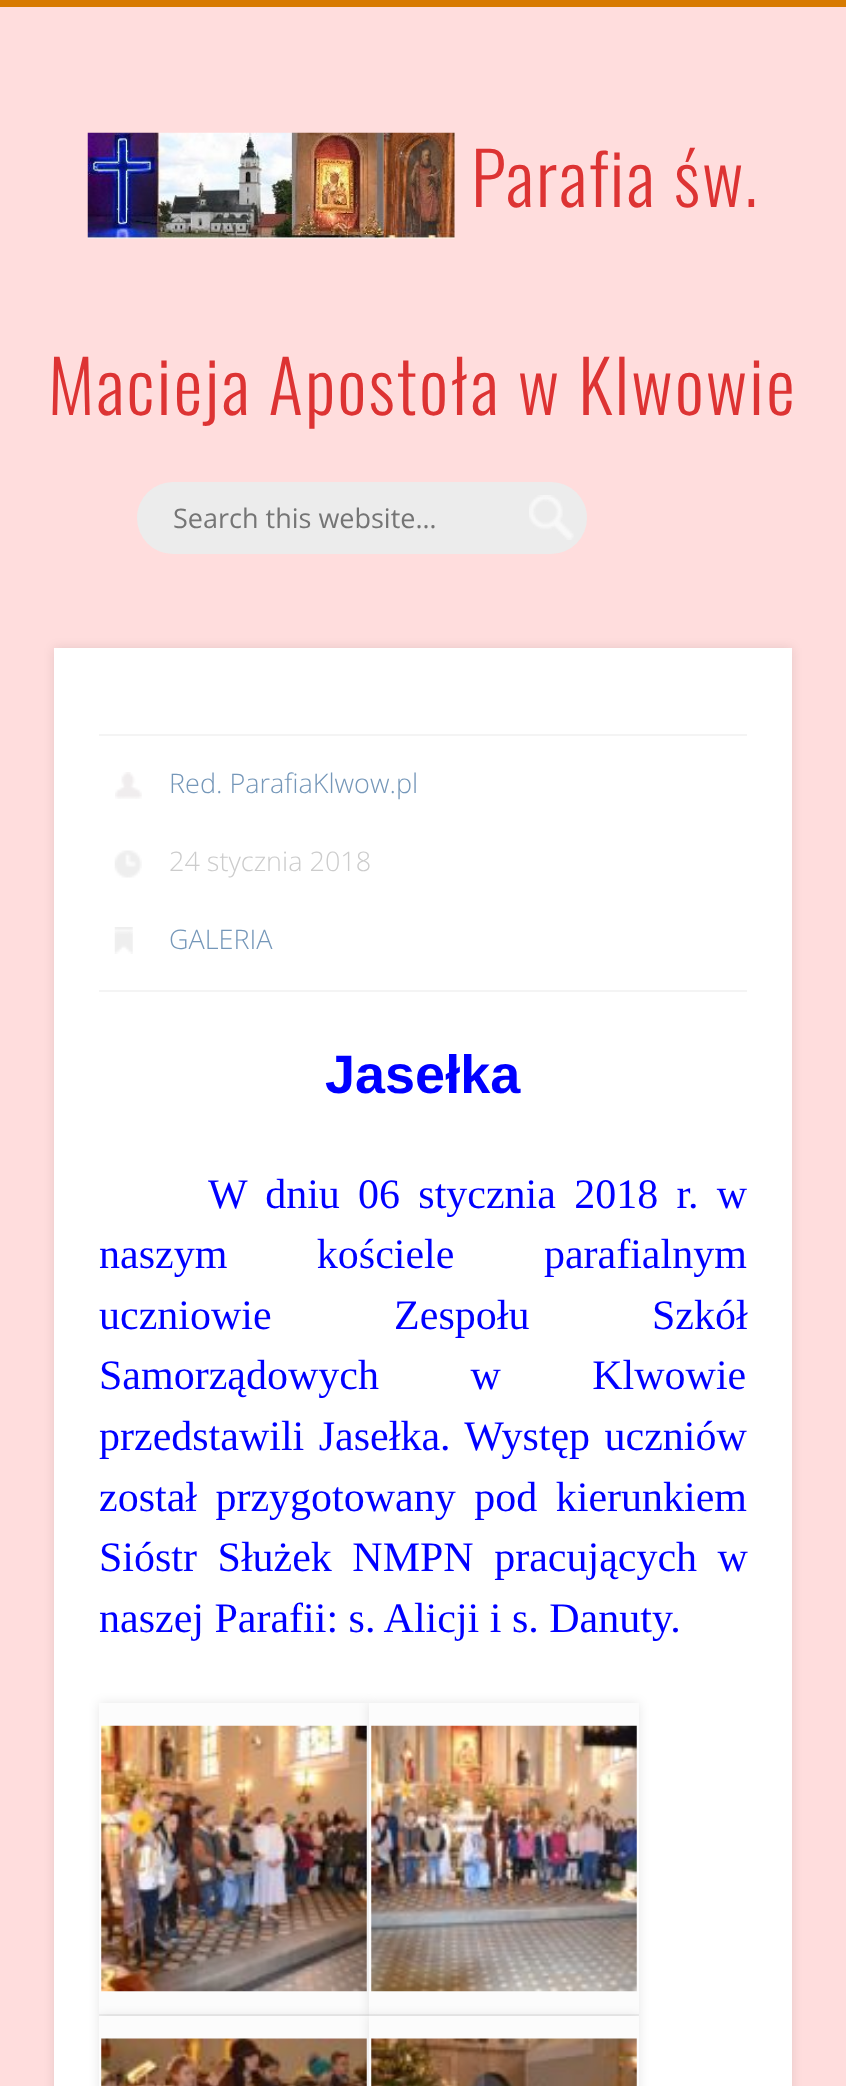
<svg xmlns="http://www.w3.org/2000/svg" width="846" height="2086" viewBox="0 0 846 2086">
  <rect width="100%" height="100%" fill="rgb(255,221,221)"/>
  <rect x="0" y="0" width="846" height="7" fill="rgb(216,122,0)"/>
  <image x="87" y="132" width="368" height="107" href="pic1.png"/>
  <g font-family="Oswald" font-size="72" font-weight="300" letter-spacing="2.25" fill="rgb(221,51,51)">
    <text x="471" y="207">Parafia św.</text>
    <text x="48" y="415">Macieja Apostoła w Klwowie</text>
  </g>
  <rect x="137" y="482" width="450" height="72" rx="36" fill="rgb(236,236,236)"/>
  <image x="529" y="495" width="45" height="45" href="pic2.png"/>
  <text x="173" y="528" font-family="Open Sans" font-size="27" fill="rgb(117,117,117)">Search this website…</text>
  <rect x="54" y="648" width="738" height="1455" fill="rgba(0,0,0,0.1)" filter="blur(5.5px)"/>
  <rect x="54" y="648" width="738" height="1438" fill="rgb(255,255,255)"/>
  <rect x="99" y="734" width="648" height="2" fill="rgb(244,244,244)"/>
  <rect x="99" y="990" width="648" height="2" fill="rgb(244,244,244)"/>
  <image x="115" y="772" width="27" height="27" href="pic3.png"/>
  <text x="169" y="793" font-family="Open Sans" font-size="27" font-weight="300" fill="rgb(117,151,185)">Red. ParafiaKlwow.pl</text>
  <image x="114" y="850" width="28" height="28" href="pic4.png"/>
  <text x="169" y="871" font-family="Open Sans" font-size="27" font-weight="300" fill="rgb(204,204,204)">24 stycznia 2018</text>
  <image x="114" y="927" width="19" height="27" href="pic5.png"/>
  <text x="169" y="949" font-family="Open Sans" font-size="27" font-weight="300" fill="rgb(117,151,185)">GALERIA</text>
  <text x="325" y="1093" font-family="Liberation Sans" font-size="54" font-weight="bold" fill="rgb(0,0,255)">Jasełka</text>
  <g font-family="Liberation Serif" font-size="42" fill="rgb(0,0,255)">
    <text x="208" y="1208" word-spacing="7.75">W dniu 06 stycznia 2018 r. w</text>
    <text>
      <tspan x="99" y="1268" word-spacing="79">naszym kościele parafialnym</tspan>
      <tspan x="99" y="1329" word-spacing="112">uczniowie Zespołu Szkół</tspan>
      <tspan x="99" y="1389" word-spacing="81">Samorządowych w Klwowie</tspan>
      <tspan x="99" y="1450" word-spacing="4">przedstawili Jasełka. Występ uczniów</tspan>
      <tspan x="99" y="1511" word-spacing="8">został przygotowany pod kierunkiem</tspan>
      <tspan x="99" y="1571" word-spacing="10">Sióstr Służek NMPN pracujących w</tspan>
      <tspan x="99" y="1632">naszej Parafii: s. Alicji i s. Danuty.</tspan>
    </text>
  </g>
  <rect x="99" y="1703" width="270" height="313" fill="rgba(0,0,0,0.1)" filter="blur(5.5px)"/>
  <rect x="99" y="1703" width="270" height="311" fill="rgb(252,252,252)"/>
  <rect x="99" y="2014" width="270" height="2" fill="rgb(238,238,238)"/>
  <image x="101" y="1725" width="266" height="267" href="pic6.png"/>
  <rect x="369" y="1703" width="270" height="313" fill="rgba(0,0,0,0.1)" filter="blur(5.5px)"/>
  <rect x="369" y="1703" width="270" height="311" fill="rgb(252,252,252)"/>
  <rect x="369" y="2014" width="270" height="2" fill="rgb(238,238,238)"/>
  <image x="371" y="1725" width="266" height="267" href="pic7.png"/>
  <rect x="99" y="2016" width="270" height="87" fill="rgba(0,0,0,0.1)" filter="blur(5.5px)"/>
  <rect x="99" y="2016" width="270" height="70" fill="rgb(252,252,252)"/>
  <image x="101" y="2038" width="266" height="48" href="pic8.png"/>
  <rect x="369" y="2016" width="270" height="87" fill="rgba(0,0,0,0.1)" filter="blur(5.5px)"/>
  <rect x="369" y="2016" width="270" height="70" fill="rgb(252,252,252)"/>
  <image x="371" y="2038" width="266" height="48" href="pic9.png"/>
</svg>
